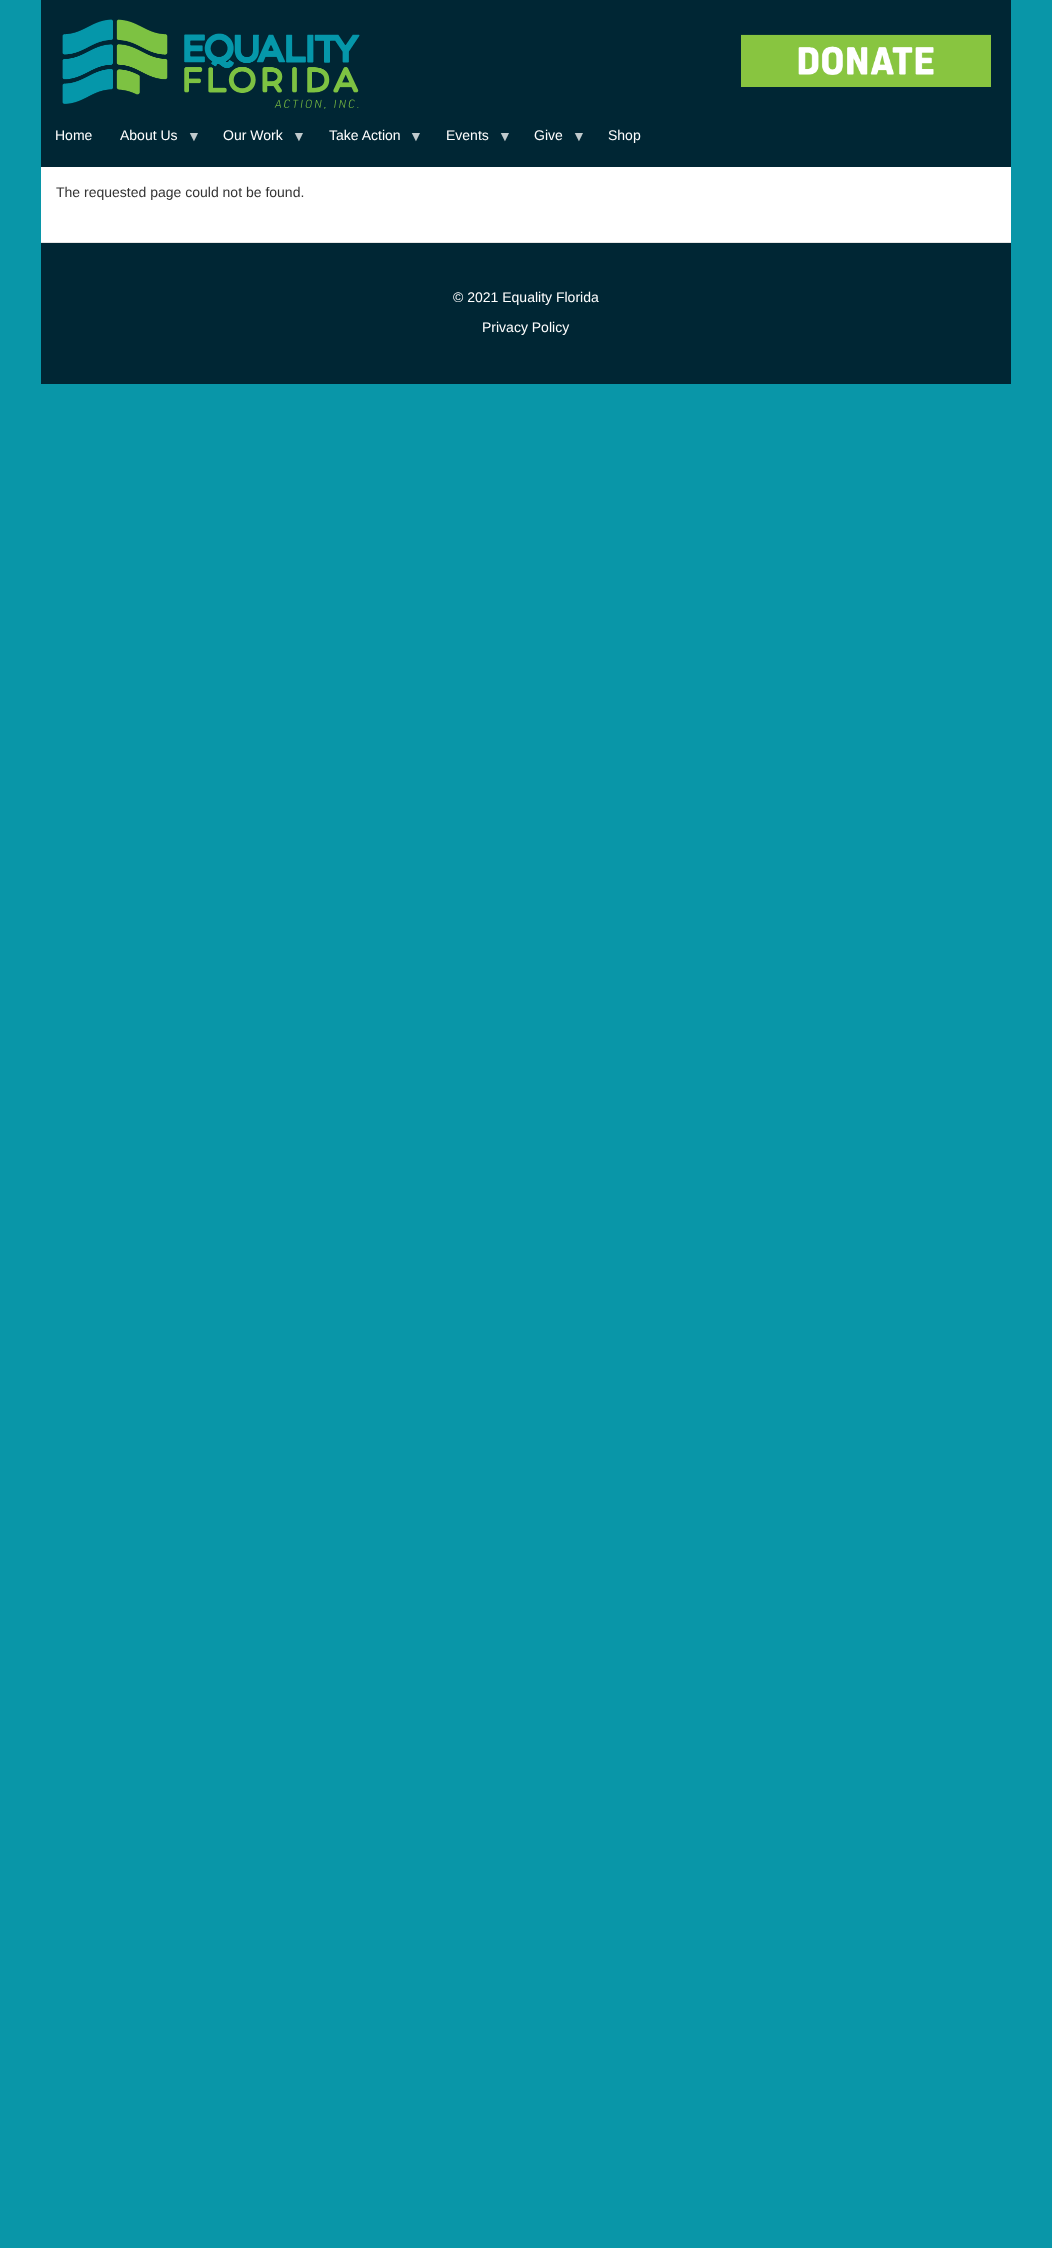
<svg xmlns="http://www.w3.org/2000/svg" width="1052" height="2248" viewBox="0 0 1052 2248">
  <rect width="100%" height="100%" fill="rgb(9,150,168)"/>
  <rect x="41" y="0" width="970" height="167" fill="rgb(0,38,52)"/>
  <image x="62" y="19" width="298" height="90" href="pic1.png"/>
  <image x="741" y="34" width="250" height="53" href="pic2.png"/>
  <g font-family="Liberation Sans" font-size="14" fill="rgb(255,255,255)">
    <text x="55" y="140">Home</text>
    <text x="120" y="140">About Us</text>
  </g>
  <text x="187" y="141" font-family="Liberation Sans" font-size="14" fill="rgb(191,201,204)">▼</text>
  <text x="223" y="140" font-family="Liberation Sans" font-size="14" fill="rgb(255,255,255)">Our Work</text>
  <text x="292" y="141" font-family="Liberation Sans" font-size="14" fill="rgb(191,201,204)">▼</text>
  <text x="329" y="140" font-family="Liberation Sans" font-size="14" fill="rgb(255,255,255)">Take Action</text>
  <text x="409" y="141" font-family="Liberation Sans" font-size="14" fill="rgb(191,201,204)">▼</text>
  <text x="446" y="140" font-family="Liberation Sans" font-size="14" fill="rgb(255,255,255)">Events</text>
  <text x="498" y="141" font-family="Liberation Sans" font-size="14" fill="rgb(191,201,204)">▼</text>
  <text x="534" y="140" font-family="Liberation Sans" font-size="14" fill="rgb(255,255,255)">Give</text>
  <text x="572" y="141" font-family="Liberation Sans" font-size="14" fill="rgb(191,201,204)">▼</text>
  <text x="608" y="140" font-family="Liberation Sans" font-size="14" fill="rgb(255,255,255)">Shop</text>
  <rect x="41" y="167" width="970" height="75" fill="rgb(255,255,255)"/>
  <text x="56" y="197" font-family="Liberation Sans" font-size="14" fill="rgb(51,51,51)">The requested page could not be found.</text>
  <rect x="41" y="243" width="970" height="141" fill="rgb(0,38,52)"/>
  <rect x="41" y="242" width="970" height="1" fill="rgb(229,229,229)"/>
  <g font-family="Liberation Sans" font-size="14" fill="rgb(255,255,255)">
    <text x="453" y="302">© 2021 Equality Florida</text>
    <text x="482" y="332">Privacy Policy</text>
  </g>
</svg>
